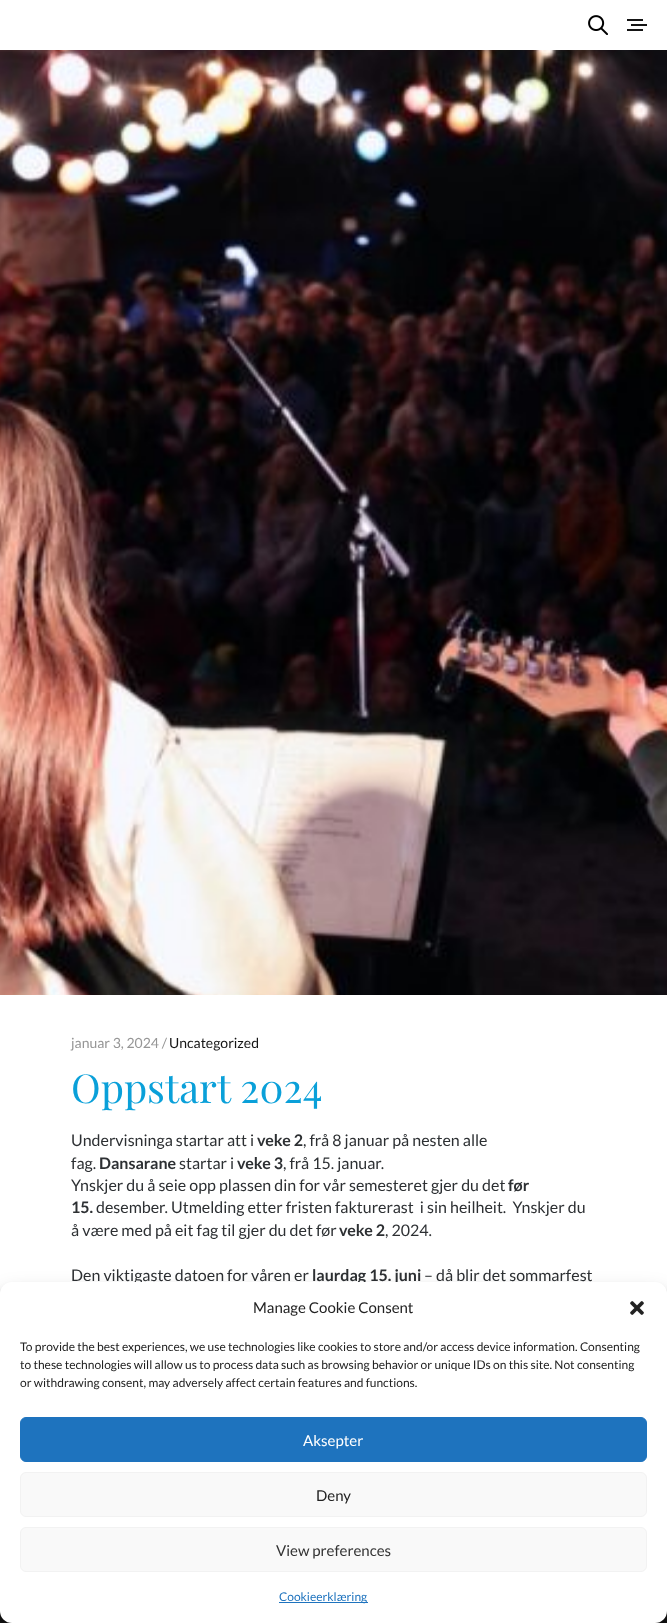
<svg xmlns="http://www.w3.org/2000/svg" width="667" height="1623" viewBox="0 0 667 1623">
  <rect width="100%" height="100%" fill="rgb(255,255,255)"/>
  <image x="588" y="15" width="20" height="20" href="pic1.png"/>
  <rect x="627" y="19" width="16" height="2" fill="rgb(21,21,21)"/>
  <rect x="631" y="24" width="16" height="2" fill="rgb(21,21,21)"/>
  <rect x="627" y="29" width="16" height="2" fill="rgb(21,21,21)"/>
  <image x="0" y="50" width="667" height="945" href="pic2.png"/>
  <text x="71" y="1048" font-family="Lato" font-size="14" fill="rgb(150,150,150)">januar 3, 2024 /</text>
  <text x="169" y="1048" font-family="Lato" font-size="14" fill="rgb(21,21,21)">Uncategorized</text>
  <text x="71" y="1103" font-family="Playfair Display" font-size="40" fill="rgb(10,160,217)">Oppstart 2024</text>
  <text x="71" y="1146" font-family="Lato" font-size="16" fill="rgb(45,48,51)">Undervisninga startar att i</text>
  <text x="257" y="1146" font-family="Lato" font-size="16" font-weight="bold" fill="rgb(45,48,51)">veke 2</text>
  <g font-family="Lato" font-size="16" fill="rgb(45,48,51)">
    <text x="303" y="1146">, frå 8 januar på nesten alle</text>
    <text x="71" y="1169">fag.</text>
  </g>
  <text x="99" y="1169" font-family="Lato" font-size="16" font-weight="bold" fill="rgb(45,48,51)">Dansarane</text>
  <text x="179" y="1169" font-family="Lato" font-size="16" fill="rgb(45,48,51)">startar i</text>
  <text x="237" y="1169" font-family="Lato" font-size="16" font-weight="bold" fill="rgb(45,48,51)">veke 3</text>
  <g font-family="Lato" font-size="16" fill="rgb(45,48,51)">
    <text x="283" y="1169">, frå 15. januar.</text>
    <text x="71" y="1191">Ynskjer du å seie opp plassen din for vår semesteret gjer du det</text>
  </g>
  <g font-family="Lato" font-size="16" font-weight="bold" fill="rgb(45,48,51)">
    <text x="508" y="1191">før</text>
    <text x="71" y="1213">15.</text>
  </g>
  <g font-family="Lato" font-size="16" fill="rgb(45,48,51)">
    <text x="96" y="1213" xml:space="preserve">desember. Utmelding etter fristen fakturerast  i sin heilheit.  Ynskjer du</text>
    <text x="71" y="1236">å være med på eit fag til gjer du det før</text>
  </g>
  <text x="339" y="1236" font-family="Lato" font-size="16" font-weight="bold" fill="rgb(45,48,51)">veke 2</text>
  <g font-family="Lato" font-size="16" fill="rgb(45,48,51)">
    <text x="385" y="1236">, 2024.</text>
    <text x="71" y="1281">Den viktigaste datoen for våren er</text>
  </g>
  <text x="312" y="1281" font-family="Lato" font-size="16" font-weight="bold" fill="rgb(45,48,51)">laurdag 15. juni</text>
  <text x="424" y="1281" font-family="Lato" font-size="16" fill="rgb(45,48,51)">– då blir det sommarfest</text>
  <rect x="0" y="1611" width="667" height="12" fill="rgb(21,21,21)"/>
  <rect x="0" y="1288" width="667" height="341" rx="12" fill="rgba(0,0,0,0.23)" filter="blur(3px)"/>
  <rect x="0" y="1292" width="667" height="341" rx="12" fill="rgba(0,0,0,0.19)" filter="blur(10px)"/>
  <rect x="0" y="1282" width="667" height="341" rx="12" fill="rgb(255,255,255)"/>
  <text x="253" y="1313" font-family="Lato" font-size="15" fill="rgb(34,34,34)">Manage Cookie Consent</text>
  <image x="630" y="1301" width="14" height="14" href="pic3.png"/>
  <g font-family="Lato" font-size="12" fill="rgb(34,34,34)">
    <text>
      <tspan x="20" y="1351">To provide the best experiences, we use technologies like cookies to store and/or access device information. Consenting</tspan>
      <tspan x="20" y="1369">to these technologies will allow us to process data such as browsing behavior or unique IDs on this site. Not consenting</tspan>
      <tspan x="20" y="1387">or withdrawing consent, may adversely affect certain features and functions.</tspan>
    </text>
  </g>
  <rect x="20.5" y="1417.5" width="626" height="44" rx="5.5" fill="rgb(30,115,190)" stroke="rgb(30,115,190)"/>
  <text x="303" y="1446" font-family="Lato" font-size="15" fill="rgb(255,255,255)">Aksepter</text>
  <rect x="20.5" y="1472.5" width="626" height="44" rx="5.5" fill="rgb(249,249,249)" stroke="rgb(242,242,242)"/>
  <text x="316" y="1501" font-family="Lato" font-size="15" fill="rgb(34,34,34)">Deny</text>
  <rect x="20.5" y="1527.5" width="626" height="44" rx="5.5" fill="rgb(249,249,249)" stroke="rgb(242,242,242)"/>
  <text x="276" y="1556" font-family="Lato" font-size="15" fill="rgb(51,51,51)">View preferences</text>
  <rect x="279" y="1602" width="89" height="1" fill="rgb(30,115,190)"/>
  <text x="279" y="1601" font-family="Lato" font-size="12" fill="rgb(30,115,190)">Cookieerklæring</text>
</svg>
